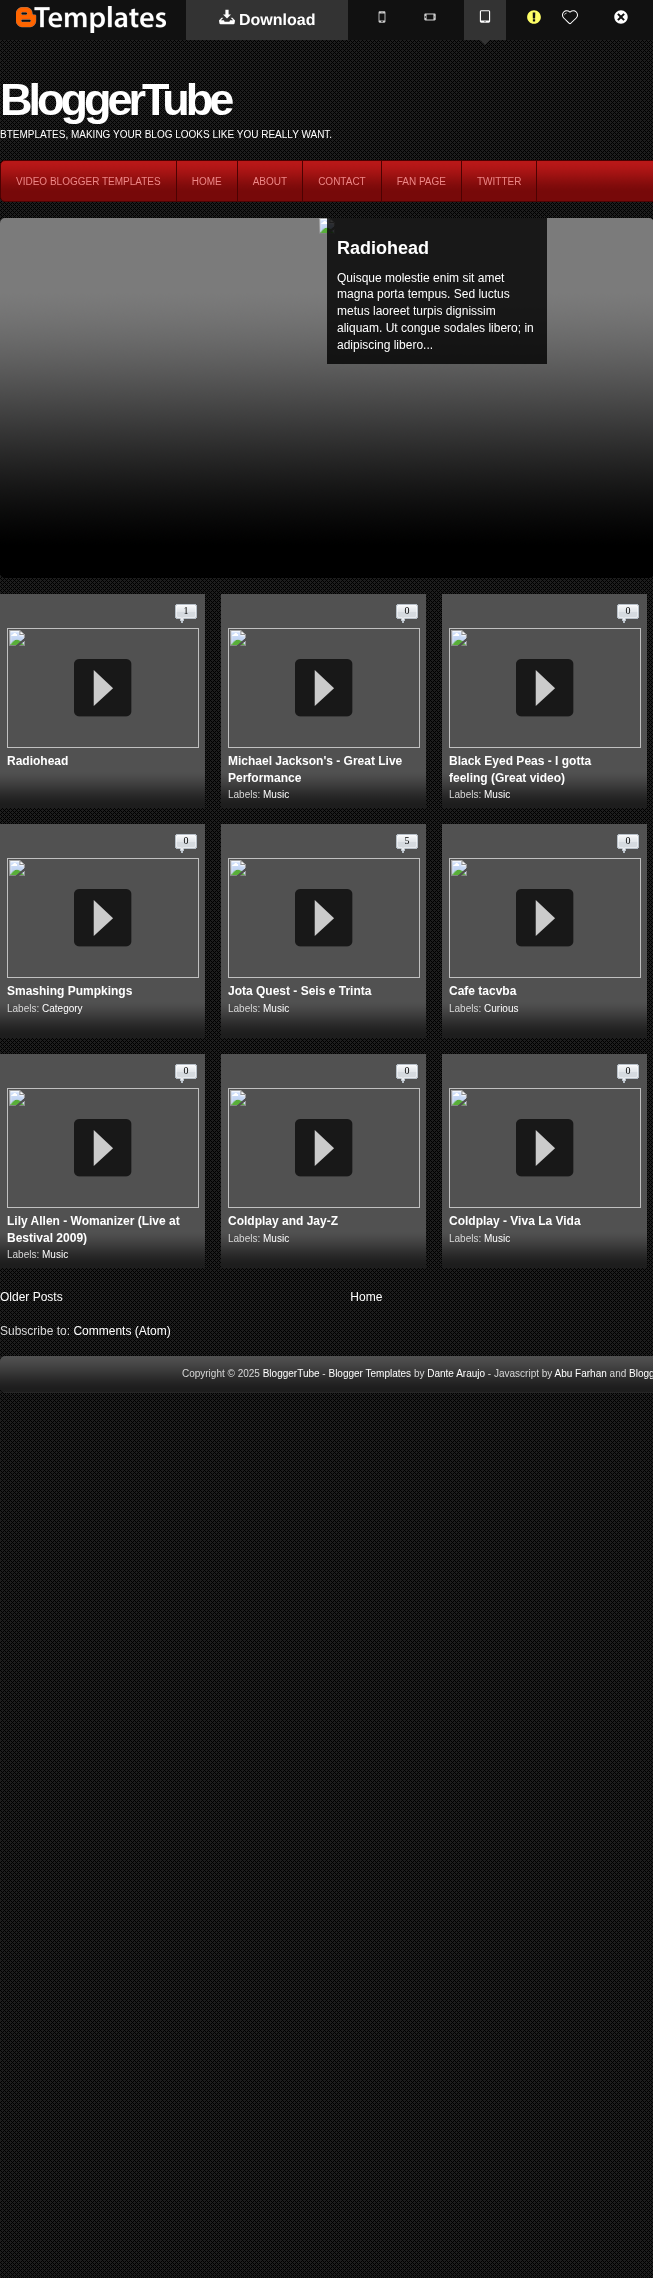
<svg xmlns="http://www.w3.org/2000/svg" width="653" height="2278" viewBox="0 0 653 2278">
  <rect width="100%" height="100%" fill="rgb(255,255,255)"/>
  <rect x="0" y="0" width="653" height="40" fill="rgb(17,17,17)"/>
  <image x="16" y="6" width="150" height="27" href="pic1.png"/>
  <rect x="186" y="0" width="162" height="40" fill="rgb(51,51,51)"/>
  <image x="219" y="9" width="16" height="16" href="pic2.png"/>
  <text x="239" y="25" font-family="Liberation Sans" font-size="16" font-weight="bold" fill="rgb(255,255,255)">Download</text>
  <image x="378" y="11" width="8" height="12" href="pic3.png"/>
  <image x="424" y="13" width="12" height="8" href="pic4.png"/>
  <rect x="464" y="0" width="42" height="40" fill="rgb(51,51,51)"/>
  <image x="479" y="10" width="12" height="13" href="pic5.png"/>
  <image x="0" y="40" width="653" height="2238" href="pic9.png"/>
  <path d="M480 40H490L485 45Z" fill="rgb(51,51,51)"/>
  <image x="527" y="10" width="14" height="14" href="pic6.png"/>
  <image x="562" y="10" width="16" height="15" href="pic7.png"/>
  <image x="614" y="10" width="14" height="14" href="pic8.png"/>
</svg>
